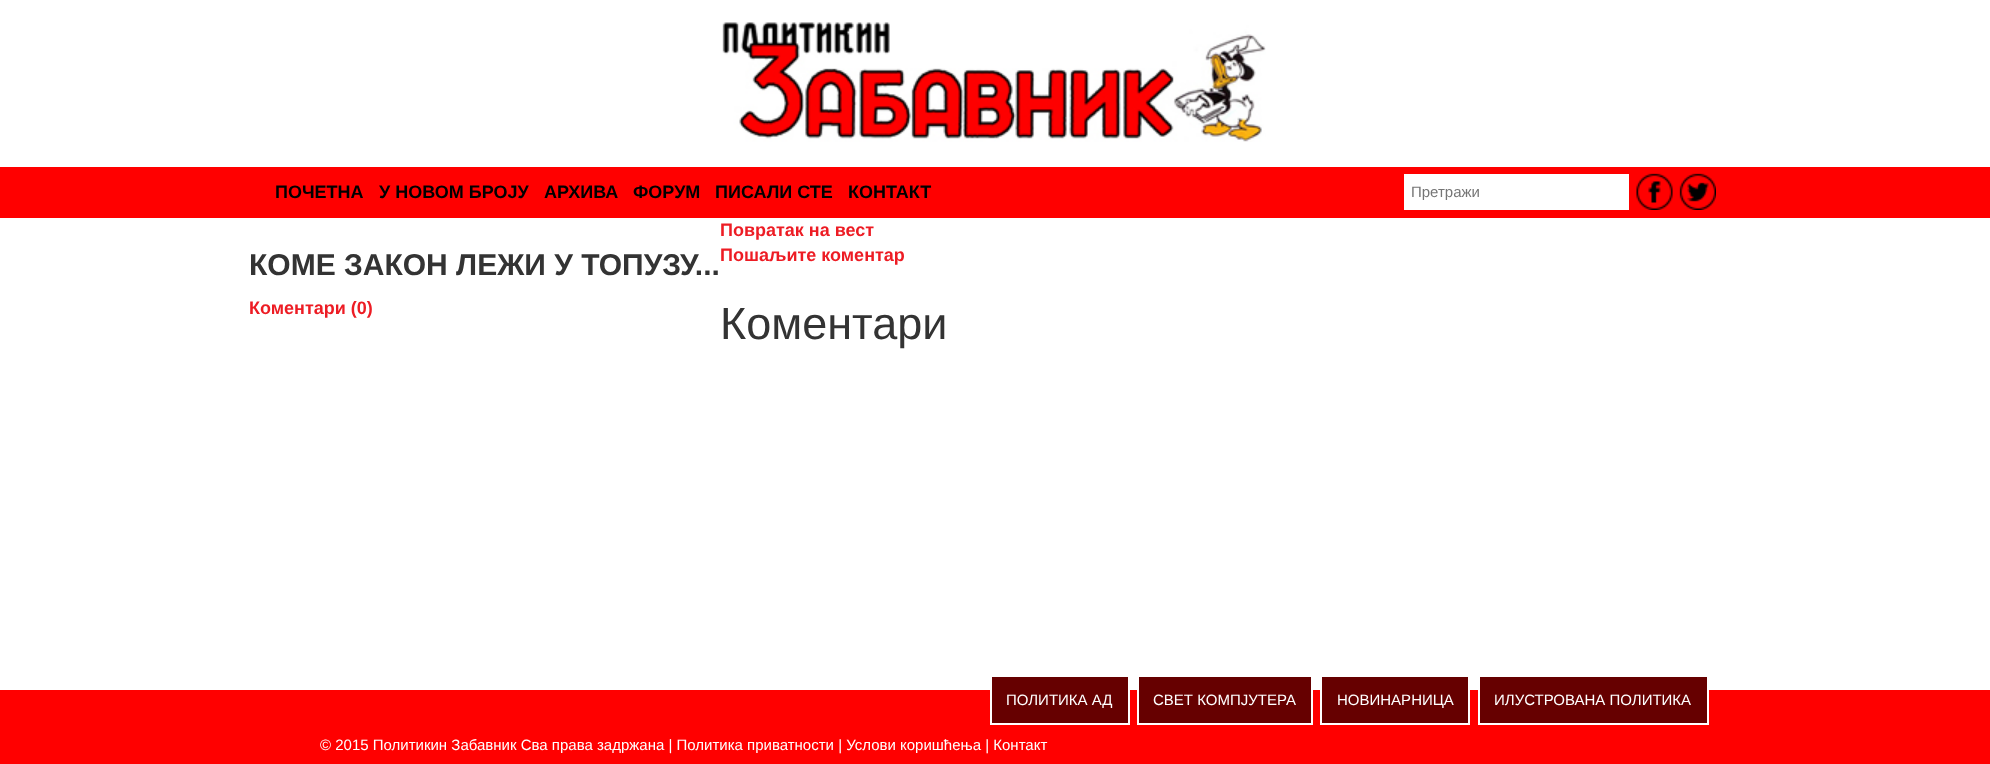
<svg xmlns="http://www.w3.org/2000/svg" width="1990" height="764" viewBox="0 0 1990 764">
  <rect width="100%" height="100%" fill="rgb(255,255,255)"/>
  <image x="722" y="22" width="544" height="120" href="pic1.png"/>
  <rect x="0" y="167" width="1990" height="51" fill="rgb(255,0,0)"/>
  <g font-family="Liberation Sans" font-size="18" font-weight="bold" fill="rgb(0,0,0)">
    <text x="275" y="198">ПОЧЕТНА</text>
    <text x="379" y="198">У НОВОМ БРОЈУ</text>
    <text x="544" y="198">АРХИВА</text>
    <text x="633" y="198">ФОРУМ</text>
    <text x="715" y="198">ПИСАЛИ СТЕ</text>
    <text x="848" y="198">КОНТАКТ</text>
  </g>
  <rect x="1404" y="174" width="225" height="36" fill="rgb(255,255,255)"/>
  <text x="1411" y="197" font-family="Liberation Sans" font-size="15" fill="rgb(117,117,117)">Претражи</text>
  <image x="1636" y="173" width="37" height="37" href="pic2.png"/>
  <image x="1679" y="173" width="37" height="37" href="pic3.png"/>
  <g font-family="Liberation Sans" font-size="18" font-weight="bold" fill="rgb(237,28,36)">
    <text>
      <tspan x="720" y="236">Повратак на вест</tspan>
      <tspan x="720" y="261">Пошаљите коментар</tspan>
    </text>
  </g>
  <text x="249" y="275" font-family="Liberation Sans" font-size="30" font-weight="bold" fill="rgb(51,51,51)">КОМЕ ЗАКОН ЛЕЖИ У ТОПУЗУ...</text>
  <text x="249" y="314" font-family="Liberation Sans" font-size="18" font-weight="bold" fill="rgb(237,28,36)">Коментари (0)</text>
  <text x="720" y="339" font-family="Liberation Sans" font-size="45" fill="rgb(51,51,51)">Коментари</text>
  <rect x="0" y="690" width="1990" height="74" fill="rgb(255,0,0)"/>
  <rect x="991" y="676" width="138" height="48" fill="rgb(102,0,0)" stroke="rgb(255,255,255)" stroke-width="2"/>
  <text x="1006" y="705" font-family="Liberation Sans" font-size="15" fill="rgb(255,255,255)">ПОЛИТИКА АД</text>
  <rect x="1138" y="676" width="174" height="48" fill="rgb(102,0,0)" stroke="rgb(255,255,255)" stroke-width="2"/>
  <text x="1153" y="705" font-family="Liberation Sans" font-size="15" fill="rgb(255,255,255)">СВЕТ КОМПЈУТЕРА</text>
  <rect x="1321" y="676" width="148" height="48" fill="rgb(102,0,0)" stroke="rgb(255,255,255)" stroke-width="2"/>
  <text x="1337" y="705" font-family="Liberation Sans" font-size="15" fill="rgb(255,255,255)">НОВИНАРНИЦА</text>
  <rect x="1479" y="676" width="229" height="48" fill="rgb(102,0,0)" stroke="rgb(255,255,255)" stroke-width="2"/>
  <g font-family="Liberation Sans" font-size="15" fill="rgb(255,255,255)">
    <text x="1494" y="705">ИЛУСТРОВАНА ПОЛИТИКА</text>
    <text x="320" y="750">© 2015 Политикин Забавник Сва права задржана | Политика приватности | Услови коришћења | Контакт</text>
  </g>
</svg>
